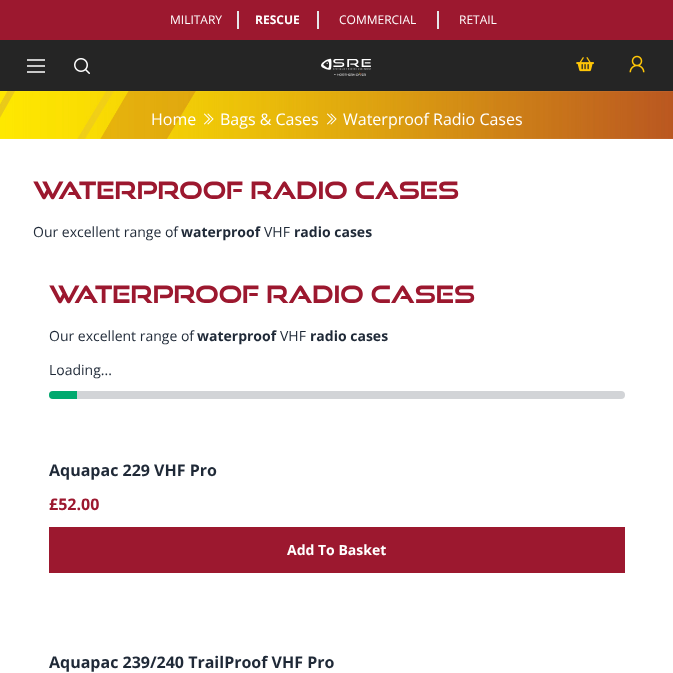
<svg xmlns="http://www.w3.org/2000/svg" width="673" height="673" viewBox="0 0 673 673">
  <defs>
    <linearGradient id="g1" gradientUnits="userSpaceOnUse" x1="-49" y1="395" x2="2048" y2="395"><stop offset="0" stop-color="rgb(0,169,110)"/><stop offset="0.06" stop-color="rgb(0,169,110)"/><stop offset="0.06" stop-color="rgb(0,169,110)" stop-opacity="0"/><stop offset="0.5" stop-color="rgb(0,169,110)" stop-opacity="0"/><stop offset="0.5" stop-color="rgb(0,169,110)"/><stop offset="0.56" stop-color="rgb(0,169,110)"/><stop offset="0.56" stop-color="rgb(0,169,110)" stop-opacity="0"/><stop offset="1" stop-color="rgb(0,0,0)" stop-opacity="0"/></linearGradient>
  </defs>
  <rect width="100%" height="100%" fill="rgb(255,255,255)"/>
  <rect x="0" y="0" width="673" height="40" fill="rgb(156,24,47)"/>
  <text x="170" y="24" font-family="Open Sans" font-size="12" fill="rgb(255,255,255)">MILITARY</text>
  <rect x="237" y="11" width="2" height="18" fill="rgb(229,231,235)"/>
  <text x="255" y="24" font-family="Open Sans" font-size="12" font-weight="bold" fill="rgb(255,255,255)">RESCUE</text>
  <rect x="317" y="11" width="2" height="18" fill="rgb(229,231,235)"/>
  <text x="339" y="24" font-family="Open Sans" font-size="12" fill="rgb(255,255,255)">COMMERCIAL</text>
  <rect x="437" y="11" width="2" height="18" fill="rgb(229,231,235)"/>
  <text x="459" y="24" font-family="Open Sans" font-size="12" fill="rgb(255,255,255)">RETAIL</text>
  <rect x="0" y="40" width="673" height="51" fill="rgb(37,37,37)"/>
  <image x="27" y="59" width="18" height="14" href="pic1.png"/>
  <image x="74" y="58" width="16" height="16" href="pic2.png"/>
  <image x="321" y="58" width="50" height="18" href="pic3.png"/>
  <image x="576" y="57" width="18" height="15" href="pic4.png"/>
  <image x="629" y="55" width="16" height="18" href="pic5.png"/>
  <image x="0" y="91" width="673" height="48" href="pic6.png"/>
  <text x="151" y="125" font-family="Open Sans" font-size="16" fill="rgb(255,255,255)">Home</text>
  <image x="203" y="113" width="11" height="12" href="pic7.png"/>
  <text x="220" y="125" font-family="Open Sans" font-size="16" fill="rgb(255,255,255)">Bags &amp; Cases</text>
  <image x="326" y="113" width="11" height="12" href="pic8.png"/>
  <text x="343" y="125" font-family="Open Sans" font-size="16" fill="rgb(255,255,255)">Waterproof Radio Cases</text>
  <text x="33" y="199" font-family="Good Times" font-size="24" font-weight="bold" fill="rgb(156,24,47)">WATERPROOF RADIO CASES</text>
  <text x="33" y="237" font-family="Open Sans" font-size="14" fill="rgb(31,41,55)">Our excellent range of</text>
  <text x="181" y="237" font-family="Open Sans" font-size="14" font-weight="bold" fill="rgb(31,41,55)">waterproof</text>
  <text x="264" y="237" font-family="Open Sans" font-size="14" fill="rgb(31,41,55)">VHF</text>
  <text x="294" y="237" font-family="Open Sans" font-size="14" font-weight="bold" fill="rgb(31,41,55)">radio cases</text>
  <text x="49" y="303" font-family="Good Times" font-size="24" font-weight="bold" fill="rgb(156,24,47)">WATERPROOF RADIO CASES</text>
  <text x="49" y="341" font-family="Open Sans" font-size="14" fill="rgb(31,41,55)">Our excellent range of</text>
  <text x="197" y="341" font-family="Open Sans" font-size="14" font-weight="bold" fill="rgb(31,41,55)">waterproof</text>
  <text x="280" y="341" font-family="Open Sans" font-size="14" fill="rgb(31,41,55)">VHF</text>
  <text x="310" y="341" font-family="Open Sans" font-size="14" font-weight="bold" fill="rgb(31,41,55)">radio cases</text>
  <text x="49" y="375" font-family="Open Sans" font-size="14" fill="rgb(31,41,55)">Loading...</text>
  <rect x="49" y="391" width="576" height="8" rx="4" fill="rgb(210,212,215)"/>
  <rect x="49" y="391" width="576" height="8" rx="4" fill="url(#g1)"/>
  <text x="49" y="476" font-family="Open Sans" font-size="16" font-weight="bold" fill="rgb(31,41,55)">Aquapac 229 VHF Pro</text>
  <text x="49" y="510" font-family="Open Sans" font-size="16" font-weight="bold" fill="rgb(156,24,47)">£52.00</text>
  <rect x="49" y="527" width="576" height="46" fill="rgb(156,24,47)"/>
  <text x="287" y="555" font-family="Open Sans" font-size="14" font-weight="bold" fill="rgb(255,255,255)">Add To Basket</text>
  <text x="49" y="668" font-family="Open Sans" font-size="16" font-weight="bold" fill="rgb(31,41,55)">Aquapac 239/240 TrailProof VHF Pro</text>
</svg>
